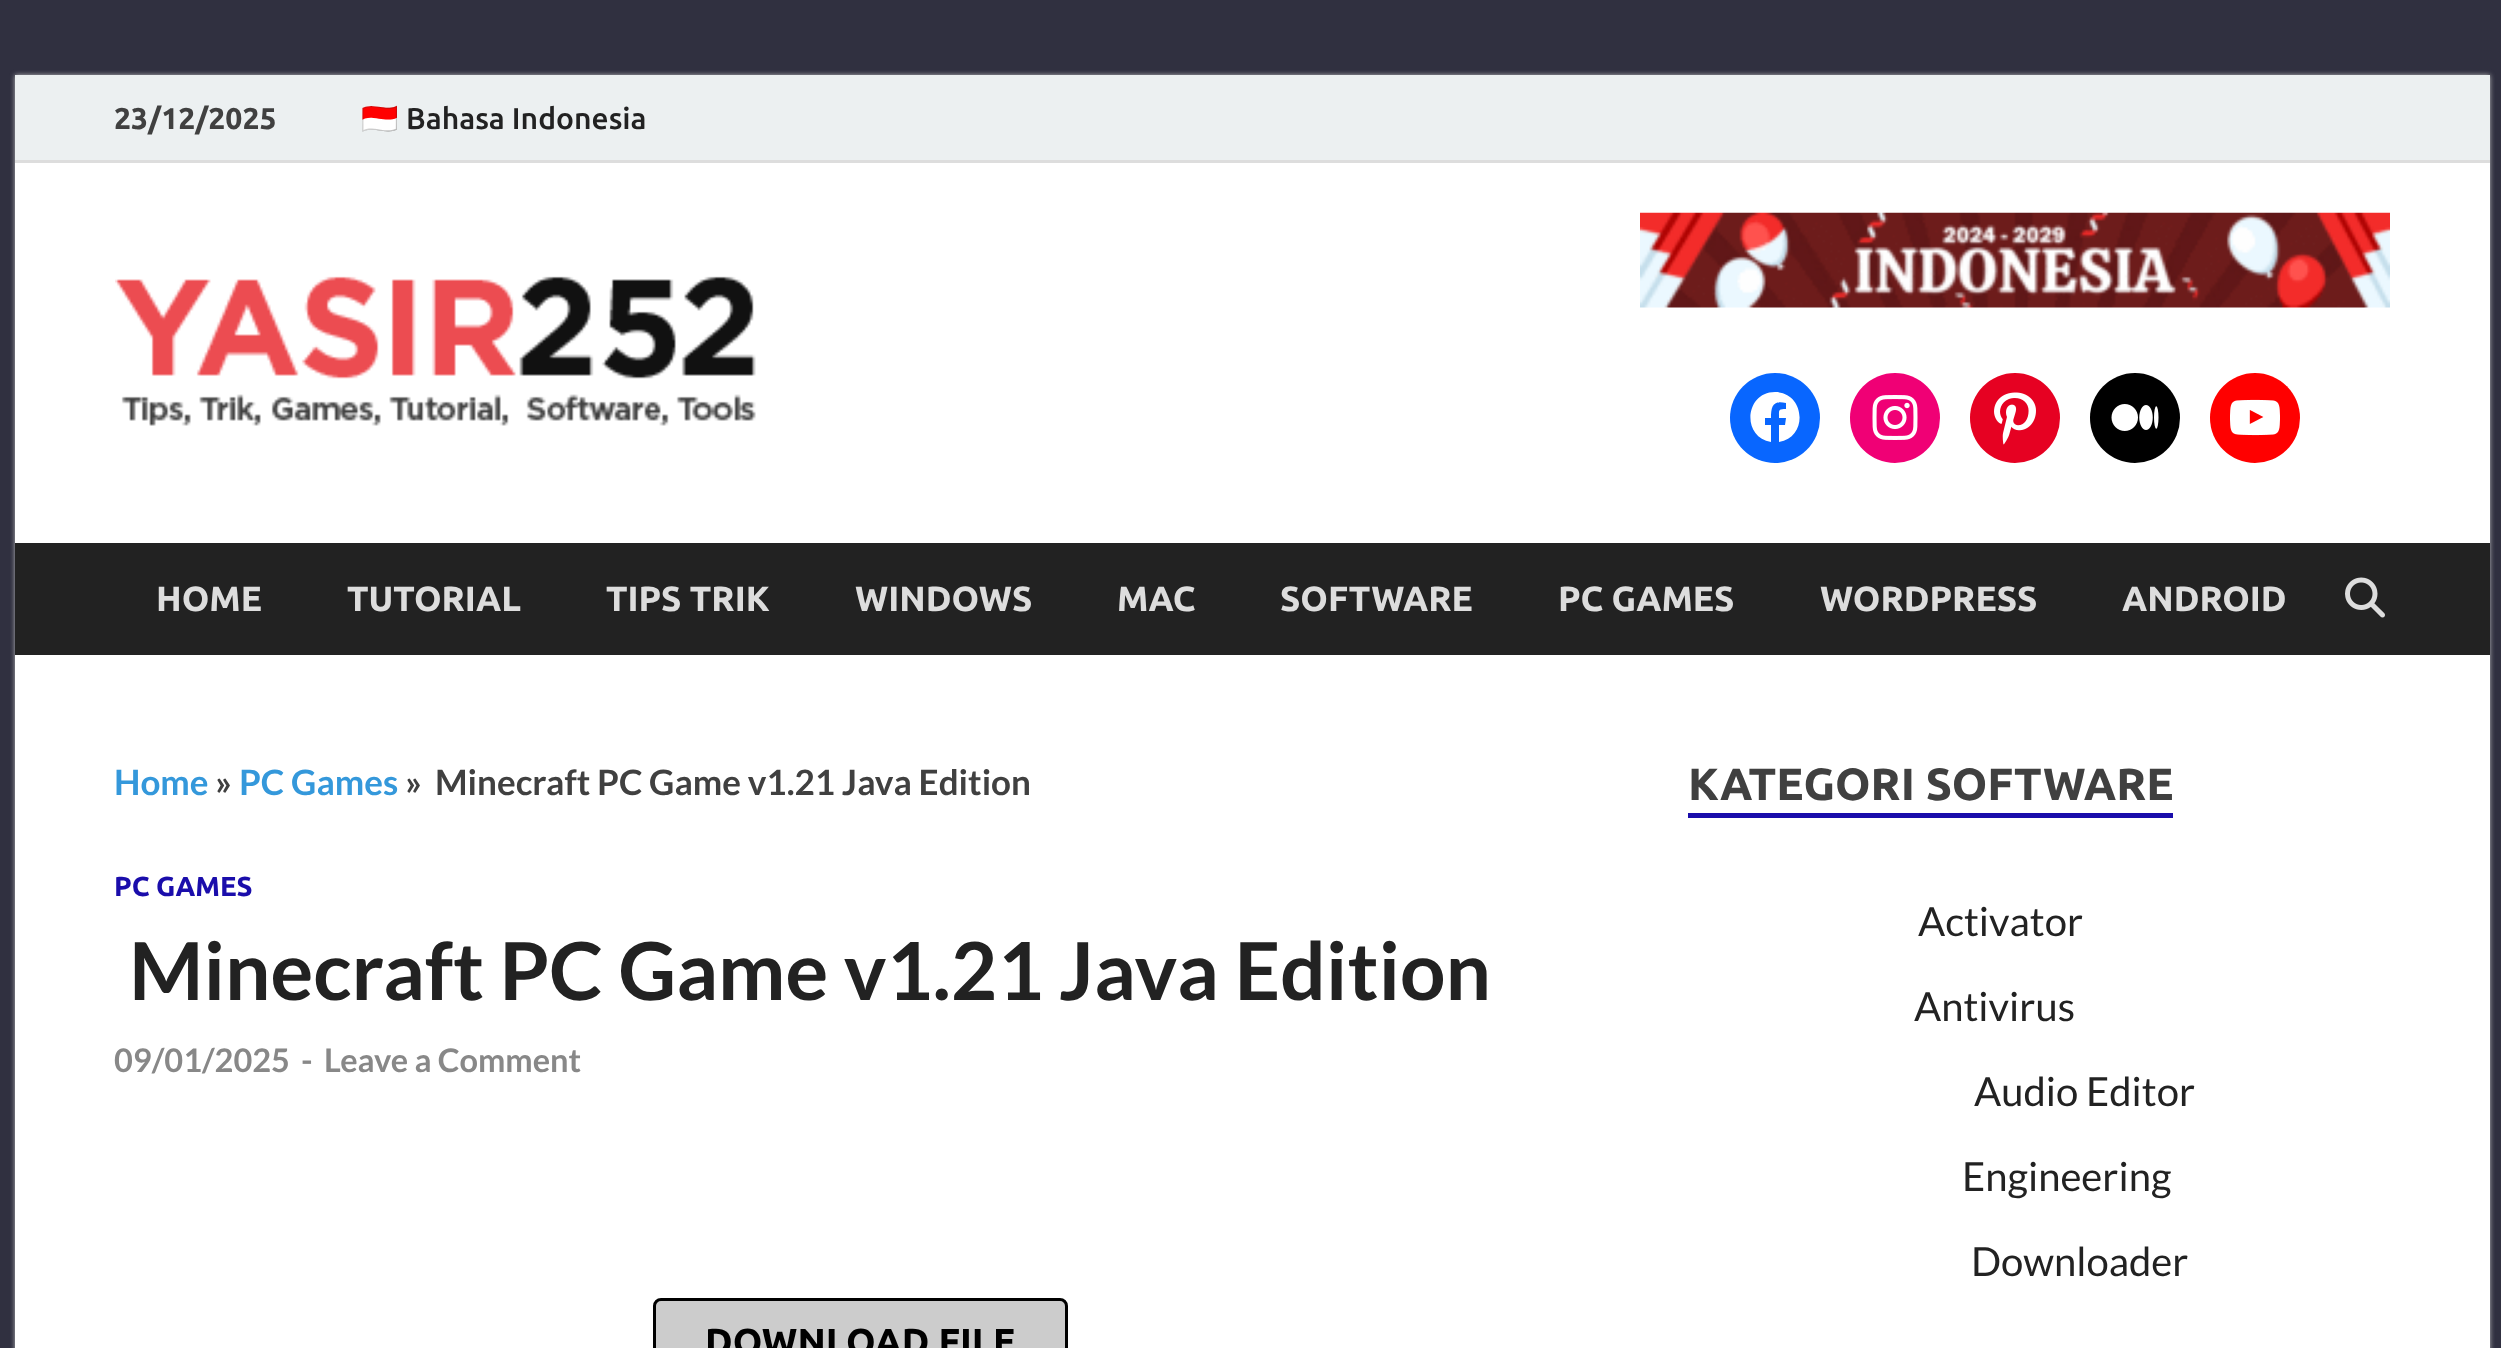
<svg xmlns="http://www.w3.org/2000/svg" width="2501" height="1348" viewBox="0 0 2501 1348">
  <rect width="100%" height="100%" fill="rgb(48,48,64)"/>
  <rect x="15" y="75" width="2475" height="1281" fill="rgb(187,187,187)" filter="blur(2.5px)"/>
  <rect x="15" y="163" width="2475" height="1185" fill="rgb(255,255,255)"/>
  <rect x="15" y="75" width="2475" height="85" fill="rgb(236,240,241)"/>
  <rect x="15" y="160" width="2475" height="3" fill="rgb(221,221,221)"/>
  <text x="114" y="129" font-family="Ubuntu" font-size="30" font-weight="bold" fill="rgb(64,64,64)">23/12/2025</text>
  <text x="361" y="129" font-family="Noto Color Emoji" font-size="30" fill="rgb(34,34,34)">🇮🇩</text>
  <text x="406" y="129" font-family="Ubuntu" font-size="30" font-weight="500" fill="rgb(34,34,34)">Bahasa Indonesia</text>
  <image x="115" y="276" width="641" height="150" href="pic1.png"/>
  <image x="1640" y="212" width="750" height="96" href="pic2.png"/>
  <circle cx="1775" cy="418" r="45" fill="rgb(8,102,255)"/>
  <path d="M1775 392C1745 392 1741 437 1771 442V425H1765V418H1771C1771 406 1773 400 1786 403V409C1778 409 1779 410 1779 418H1786L1785 425H1779V442C1809 437 1805 392 1775 392Z" fill="rgb(255,255,255)"/>
  <circle cx="1895" cy="418" r="45" fill="rgb(240,0,117)"/>
  <image x="1872" y="395" width="46" height="45" href="pic3.png"/>
  <circle cx="2015" cy="418" r="45" fill="rgb(230,1,34)"/>
  <image x="1994" y="392" width="42" height="53" href="pic4.png"/>
  <circle cx="2135" cy="418" r="45" fill="rgb(0,0,0)"/>
  <image x="2111" y="404" width="48" height="27" href="pic5.png"/>
  <circle cx="2255" cy="418" r="45" fill="rgb(255,0,0)"/>
  <image x="2230" y="399" width="50" height="37" href="pic6.png"/>
  <rect x="15" y="543" width="2475" height="112" fill="rgb(34,34,34)"/>
  <g font-family="Ubuntu" font-size="35" font-weight="bold" fill="rgb(221,221,221)">
    <text x="156" y="611">HOME</text>
    <text x="347" y="611">TUTORIAL</text>
    <text x="606" y="611">TIPS TRIK</text>
    <text x="855" y="611">WINDOWS</text>
    <text x="1117" y="611">MAC</text>
    <text x="1280" y="611">SOFTWARE</text>
    <text x="1558" y="611">PC GAMES</text>
    <text x="1820" y="611">WORDPRESS</text>
    <text x="2122" y="611">ANDROID</text>
  </g>
  <image x="2345" y="577" width="40" height="41" href="pic7.png"/>
  <text x="114" y="795" font-family="Lato" font-size="35" font-weight="bold" fill="rgb(52,152,219)">Home</text>
  <text x="215" y="795" font-family="Lato" font-size="35" font-weight="bold" fill="rgb(64,64,64)">»</text>
  <text x="239" y="795" font-family="Lato" font-size="35" font-weight="bold" fill="rgb(52,152,219)">PC Games</text>
  <g font-family="Lato" font-size="35" font-weight="bold" fill="rgb(64,64,64)">
    <text x="405" y="795">»</text>
    <text x="435" y="795">Minecraft PC Game v1.21 Java Edition</text>
  </g>
  <text x="114" y="896" font-family="Ubuntu" font-size="27.5" font-weight="bold" fill="rgb(26,13,171)">PC GAMES</text>
  <text x="129" y="1000" font-family="Lato" font-size="80" font-weight="bold" fill="rgb(34,34,34)">Minecraft PC Game v1.21 Java Edition</text>
  <g font-family="Lato" font-size="32.5" font-weight="bold" fill="rgb(136,136,136)">
    <text x="114" y="1072">09/01/2025</text>
    <text x="301" y="1072">-</text>
    <text x="324" y="1072">Leave a Comment</text>
  </g>
  <rect x="654.5" y="1299.5" width="412" height="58" rx="6.5" fill="rgb(204,204,204)" stroke="rgb(0,0,0)" stroke-width="3"/>
  <text x="705" y="1355" font-family="Ubuntu" font-size="37.5" font-weight="bold" fill="rgb(0,0,0)">DOWNLOAD FILE</text>
  <rect x="1688" y="813" width="485" height="5" fill="rgb(26,13,171)"/>
  <text x="1688" y="800" font-family="Ubuntu" font-size="45" font-weight="bold" fill="rgb(64,64,64)">KATEGORI SOFTWARE</text>
  <g font-family="Lato" font-size="40" fill="rgb(34,34,34)">
    <text x="1918" y="936">Activator</text>
    <text x="1914" y="1021">Antivirus</text>
    <text x="1974" y="1106">Audio Editor</text>
    <text x="1962" y="1191">Engineering</text>
    <text x="1971" y="1276">Downloader</text>
  </g>
</svg>
